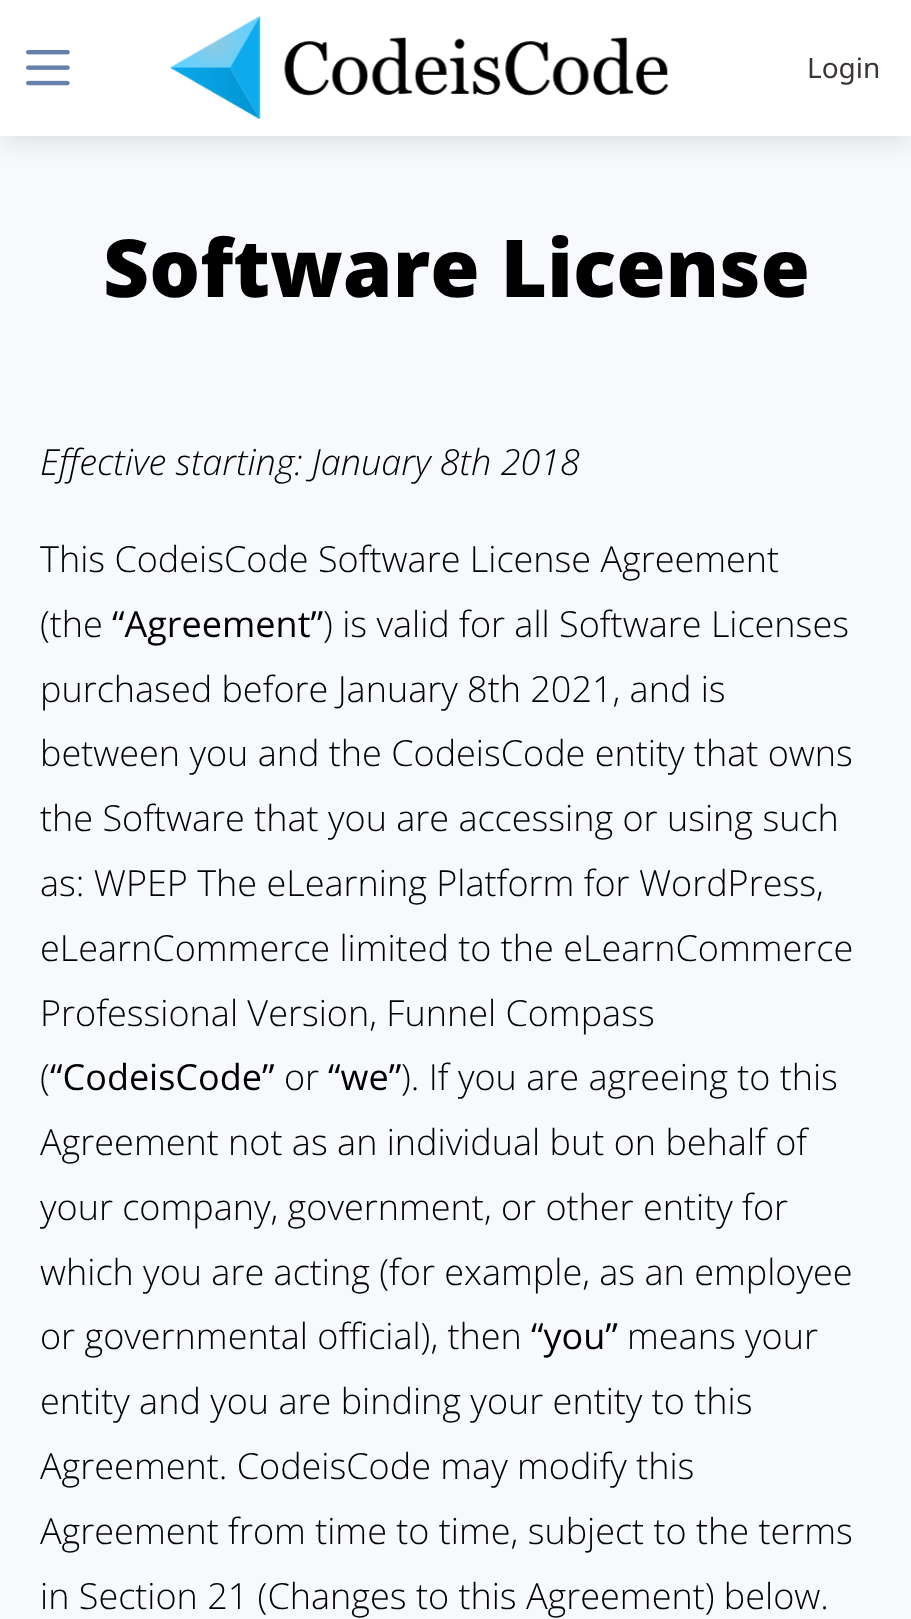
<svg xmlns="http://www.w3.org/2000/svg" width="911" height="1619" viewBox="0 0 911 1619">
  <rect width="100%" height="100%" fill="rgb(247,249,252)"/>
  <rect x="0" y="0" width="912" height="136" fill="rgba(0,0,0,0.15)" filter="blur(16px)"/>
  <rect x="0" y="0" width="911" height="136" fill="rgb(255,255,255)"/>
  <image x="26" y="50" width="44" height="36" href="pic1.png"/>
  <image x="169" y="16" width="500" height="104" href="pic2.png"/>
  <text x="807" y="78" font-family="Noto Sans" font-size="28" fill="rgb(59,53,53)">Login</text>
  <text x="103" y="297" font-family="Open Sans" font-size="80" font-weight="800" fill="rgb(0,0,0)">Software License</text>
  <text x="40" y="475" font-family="Open Sans" font-size="36" font-weight="300" font-style="italic" fill="rgb(0,0,0)">Effective starting: January 8th 2018</text>
  <g font-family="Open Sans" font-size="36" font-weight="300" fill="rgb(0,0,0)">
    <text>
      <tspan x="40" y="572">This CodeisCode Software License Agreement</tspan>
      <tspan x="40" y="637">(the</tspan>
    </text>
  </g>
  <text x="112" y="637" font-family="Open Sans" font-size="36" fill="rgb(0,0,0)">“Agreement”</text>
  <g font-family="Open Sans" font-size="36" font-weight="300" fill="rgb(0,0,0)">
    <text x="323" y="637">) is valid for all Software Licenses</text>
    <text>
      <tspan x="40" y="702">purchased before January 8th 2021, and is</tspan>
      <tspan x="40" y="766">between you and the CodeisCode entity that owns</tspan>
      <tspan x="40" y="831">the Software that you are accessing or using such</tspan>
      <tspan x="40" y="896">as: WPEP The eLearning Platform for WordPress,</tspan>
      <tspan x="40" y="961">eLearnCommerce limited to the eLearnCommerce</tspan>
      <tspan x="40" y="1026">Professional Version, Funnel Compass</tspan>
      <tspan x="40" y="1090">(</tspan>
    </text>
  </g>
  <text x="50" y="1090" font-family="Open Sans" font-size="36" fill="rgb(0,0,0)">“CodeisCode”</text>
  <text x="284" y="1090" font-family="Open Sans" font-size="36" font-weight="300" fill="rgb(0,0,0)">or</text>
  <text x="328" y="1090" font-family="Open Sans" font-size="36" fill="rgb(0,0,0)">“we”</text>
  <g font-family="Open Sans" font-size="36" font-weight="300" fill="rgb(0,0,0)">
    <text x="401" y="1090">). If you are agreeing to this</text>
    <text>
      <tspan x="40" y="1155">Agreement not as an individual but on behalf of</tspan>
      <tspan x="40" y="1220">your company, government, or other entity for</tspan>
      <tspan x="40" y="1285">which you are acting (for example, as an employee</tspan>
      <tspan x="40" y="1349">or governmental official), then</tspan>
    </text>
  </g>
  <text x="531" y="1349" font-family="Open Sans" font-size="36" fill="rgb(0,0,0)">“you”</text>
  <g font-family="Open Sans" font-size="36" font-weight="300" fill="rgb(0,0,0)">
    <text x="627" y="1349">means your</text>
    <text>
      <tspan x="40" y="1414">entity and you are binding your entity to this</tspan>
      <tspan x="40" y="1479">Agreement. CodeisCode may modify this</tspan>
      <tspan x="40" y="1544">Agreement from time to time, subject to the terms</tspan>
      <tspan x="40" y="1609">in Section 21 (Changes to this Agreement) below.</tspan>
    </text>
  </g>
</svg>
